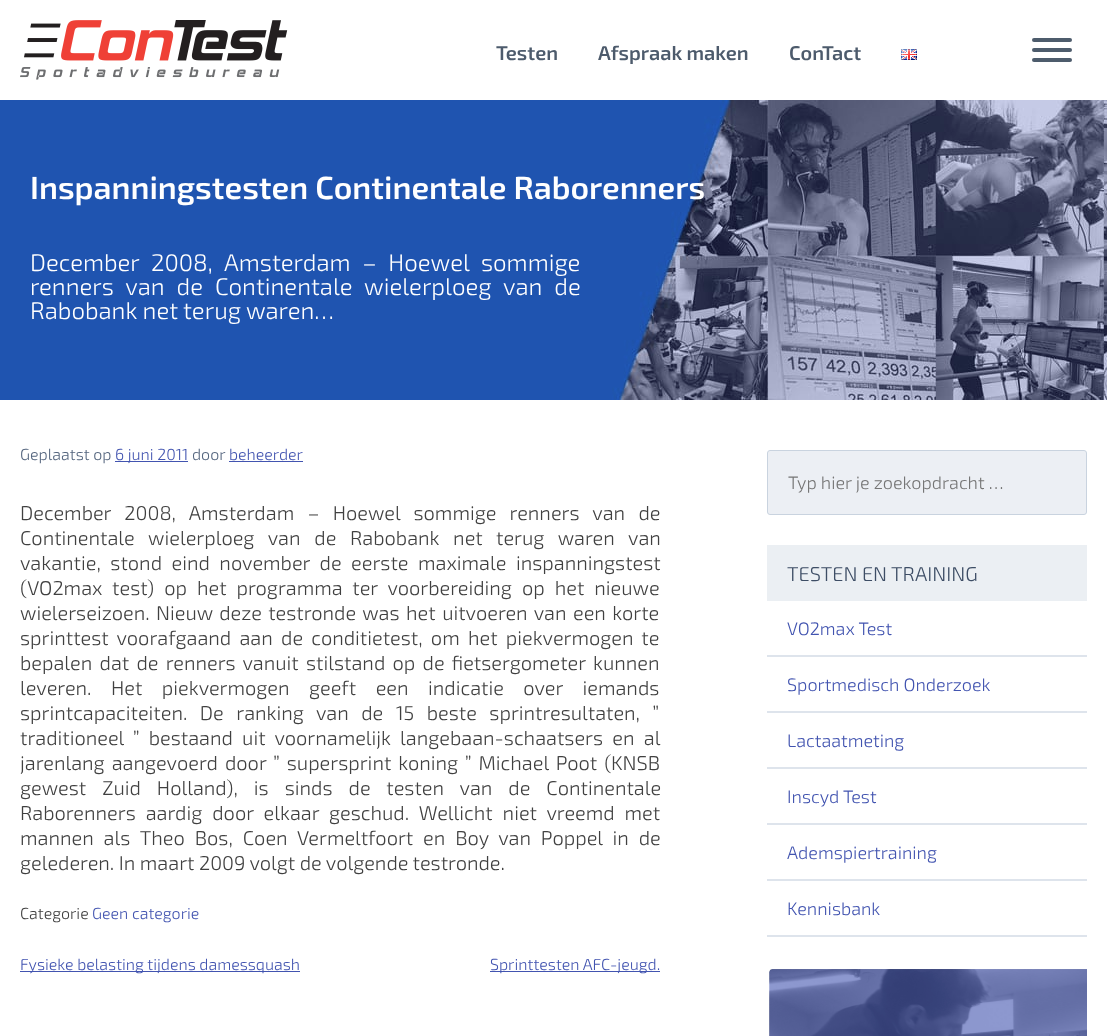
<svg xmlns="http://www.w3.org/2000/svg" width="1107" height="1036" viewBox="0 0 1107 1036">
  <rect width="100%" height="100%" fill="rgb(255,255,255)"/>
  <image x="20" y="20" width="268" height="60" href="pic1.png"/>
  <g font-family="'Exo 2'" font-size="20" font-weight="600" fill="rgb(77,91,108)">
    <text x="496" y="60">Testen</text>
    <text x="598" y="60">Afspraak maken</text>
    <text x="789" y="60">ConTact</text>
  </g>
  <image x="901" y="49" width="16" height="11" href="pic2.png"/>
  <rect x="1032" y="38" width="40" height="4" rx="2" fill="rgb(77,92,108)"/>
  <rect x="1032" y="48" width="40" height="4" rx="2" fill="rgb(77,92,108)"/>
  <rect x="1032" y="58" width="40" height="4" rx="2" fill="rgb(77,92,108)"/>
  <rect x="0" y="100" width="612" height="300" fill="rgb(31,84,176)"/>
  <image x="612" y="100" width="495" height="300" href="pic3.png"/>
  <text x="30" y="199" font-family="'Exo 2'" font-size="32" font-weight="600" fill="rgb(255,255,255)">Inspanningstesten Continentale Raborenners</text>
  <g font-family="'Exo 2'" font-size="24" font-weight="300" fill="rgb(255,255,255)">
    <text>
      <tspan x="30" y="271" word-spacing="6.25">December 2008, Amsterdam – Hoewel sommige</tspan>
      <tspan x="30" y="295" word-spacing="6.5">renners van de Continentale wielerploeg van de</tspan>
      <tspan x="30" y="319">Rabobank net terug waren…</tspan>
    </text>
  </g>
  <text x="20" y="460" font-family="'Exo 2'" font-size="16" font-weight="300" fill="rgb(84,101,126)">Geplaatst op</text>
  <rect x="115" y="461" width="73" height="1" fill="rgb(66,84,176)"/>
  <text x="115" y="460" font-family="'Exo 2'" font-size="16" font-weight="300" fill="rgb(66,84,176)">6 juni 2011</text>
  <text x="192" y="460" font-family="'Exo 2'" font-size="16" font-weight="300" fill="rgb(84,101,126)">door</text>
  <text x="229" y="460" font-family="'Exo 2'" font-size="16" font-weight="300" fill="rgb(66,84,176)">beheerder</text>
  <rect x="229" y="461" width="74" height="1" fill="rgb(66,84,176)"/>
  <g font-family="'Exo 2'" font-size="20" font-weight="300" fill="rgb(64,64,64)">
    <text>
      <tspan x="20" y="520" word-spacing="8.75">December 2008, Amsterdam – Hoewel sommige renners van de</tspan>
      <tspan x="20" y="545" word-spacing="9.25">Continentale wielerploeg van de Rabobank net terug waren van</tspan>
      <tspan x="20" y="570" word-spacing="5">vakantie, stond eind november de eerste maximale inspanningstest</tspan>
      <tspan x="20" y="595" word-spacing="5.5">(VO2max test) op het programma ter voorbereiding op het nieuwe</tspan>
      <tspan x="20" y="620">wielerseizoen.</tspan>
    </text>
    <text x="156" y="620" word-spacing="2">Nieuw deze testronde was het uitvoeren van een korte</text>
    <text>
      <tspan x="20" y="645" word-spacing="3.75">sprinttest voorafgaand aan de conditietest, om het piekvermogen te</tspan>
      <tspan x="20" y="670" word-spacing="2.75">bepalen dat de renners vanuit stilstand op de fietsergometer kunnen</tspan>
      <tspan x="20" y="695" word-spacing="15">leveren. Het piekvermogen geeft een indicatie over iemands</tspan>
      <tspan x="20" y="720" word-spacing="8">sprintcapaciteiten. De ranking van de 15 beste sprintresultaten, ”</tspan>
      <tspan x="20" y="745" word-spacing="4.75">traditioneel ” bestaand uit voornamelijk langebaan-schaatsers en al</tspan>
      <tspan x="20" y="770" word-spacing="2.5">jarenlang aangevoerd door ” supersprint koning ” Michael Poot (KNSB</tspan>
      <tspan x="20" y="795" word-spacing="11.5">gewest Zuid Holland), is sinds de testen van de Continentale</tspan>
      <tspan x="20" y="820" word-spacing="5.4">Raborenners aardig door elkaar geschud. Wellicht niet vreemd met</tspan>
      <tspan x="20" y="845" word-spacing="5.4">mannen als Theo Bos, Coen Vermeltfoort en Boy van Poppel in de</tspan>
      <tspan x="20" y="870">gelederen. In maart 2009 volgt de volgende testronde.</tspan>
    </text>
  </g>
  <text x="20" y="919" font-family="'Exo 2'" font-size="16" font-weight="300" fill="rgb(64,64,64)">Categorie</text>
  <text x="92" y="919" font-family="'Exo 2'" font-size="16" font-weight="300" fill="rgb(66,84,176)">Geen categorie</text>
  <rect x="20" y="971" width="280" height="1" fill="rgb(66,84,176)"/>
  <text x="20" y="970" font-family="'Exo 2'" font-size="16" font-weight="300" fill="rgb(66,84,176)">Fysieke belasting tijdens damessquash</text>
  <rect x="490" y="971" width="170" height="1" fill="rgb(66,84,176)"/>
  <text x="490" y="970" font-family="'Exo 2'" font-size="16" font-weight="300" fill="rgb(66,84,176)">Sprinttesten AFC-jeugd.</text>
  <rect x="767.5" y="450.5" width="319" height="64" rx="2.5" fill="rgb(236,239,244)" stroke="rgb(201,211,223)"/>
  <text x="788" y="489" font-family="'Exo 2'" font-size="18" font-weight="300" fill="rgb(117,117,117)">Typ hier je zoekopdracht …</text>
  <rect x="767" y="545" width="320" height="56" fill="rgb(235,239,243)"/>
  <text x="787" y="581" font-family="'Exo 2'" font-size="20" font-weight="300" fill="rgb(61,77,101)">TESTEN EN TRAINING</text>
  <rect x="767" y="655" width="320" height="2" fill="rgb(222,228,236)"/>
  <text x="787" y="635" font-family="'Exo 2'" font-size="18" font-weight="300" fill="rgb(66,84,176)">VO2max Test</text>
  <rect x="767" y="711" width="320" height="2" fill="rgb(222,228,236)"/>
  <text x="787" y="691" font-family="'Exo 2'" font-size="18" font-weight="300" fill="rgb(66,84,176)">Sportmedisch Onderzoek</text>
  <rect x="767" y="767" width="320" height="2" fill="rgb(222,228,236)"/>
  <text x="787" y="747" font-family="'Exo 2'" font-size="18" font-weight="300" fill="rgb(66,84,176)">Lactaatmeting</text>
  <rect x="767" y="823" width="320" height="2" fill="rgb(222,228,236)"/>
  <text x="787" y="803" font-family="'Exo 2'" font-size="18" font-weight="300" fill="rgb(66,84,176)">Inscyd Test</text>
  <rect x="767" y="879" width="320" height="2" fill="rgb(222,228,236)"/>
  <text x="787" y="859" font-family="'Exo 2'" font-size="18" font-weight="300" fill="rgb(66,84,176)">Ademspiertraining</text>
  <rect x="767" y="935" width="320" height="2" fill="rgb(222,228,236)"/>
  <text x="787" y="915" font-family="'Exo 2'" font-size="18" font-weight="300" fill="rgb(66,84,176)">Kennisbank</text>
  <image x="769" y="969" width="318" height="67" href="pic4.png"/>
</svg>
